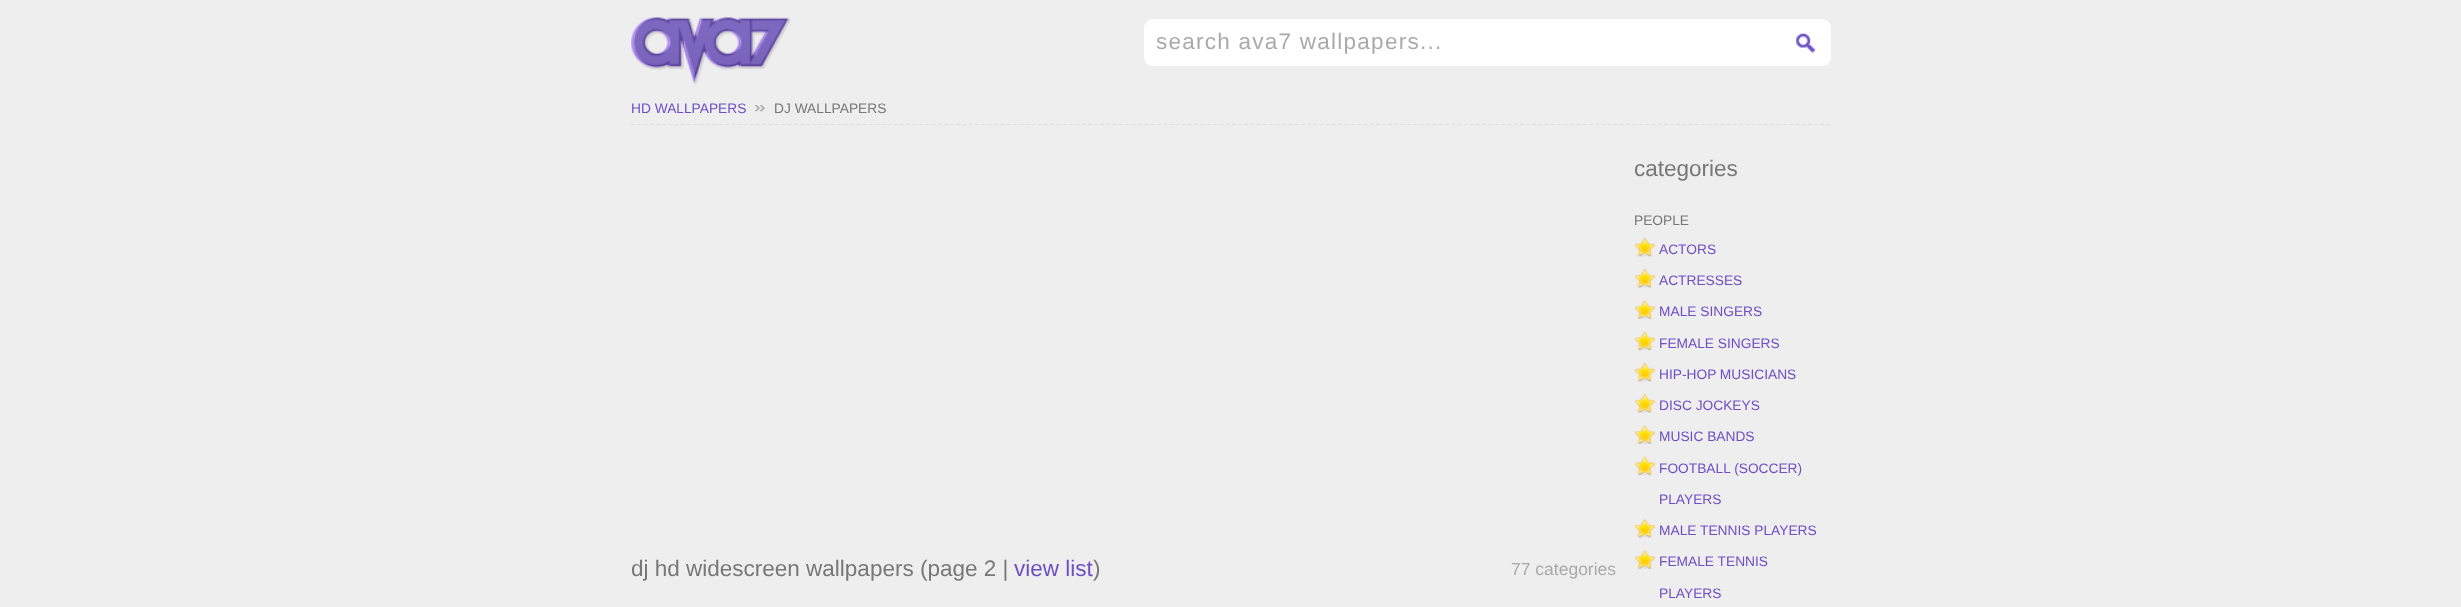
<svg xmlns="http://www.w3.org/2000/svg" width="2461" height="607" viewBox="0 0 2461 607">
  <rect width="100%" height="100%" fill="rgb(238,238,238)"/>
  <image x="631" y="17" width="160" height="68" href="pic1.png"/>
  <path d="M1153 19H1781V66H1153C1148 66 1144 62 1144 57V28C1144 23 1148 19 1153 19Z" fill="rgb(255,255,255)"/>
  <text x="1156" y="49" font-family="Liberation Sans" font-size="22.5" letter-spacing="1.25" fill="rgb(170,170,170)">search ava7 wallpapers...</text>
  <path d="M1781 19H1822C1827 19 1831 23 1831 28V57C1831 62 1827 66 1822 66H1781Z" fill="rgb(255,255,255)"/>
  <image x="1796" y="33" width="20" height="20" href="pic2.png"/>
  <path d="M631 124.5H1831" fill="none" stroke="rgb(221,221,221)" stroke-width="1.2" stroke-dasharray="3.75 2.51"/>
  <text x="631" y="113" font-family="Liberation Sans" font-size="13.75" fill="rgb(108,80,196)">HD WALLPAPERS</text>
  <image x="755" y="105" width="10" height="7" href="pic3.png"/>
  <text x="774" y="113" font-family="Liberation Sans" font-size="13.75" fill="rgb(119,119,119)">DJ WALLPAPERS</text>
  <text x="631" y="576" font-family="Liberation Sans" font-size="22.5" fill="rgb(119,119,119)">dj hd widescreen wallpapers (page 2 |</text>
  <text x="1014" y="576" font-family="Liberation Sans" font-size="22.5" fill="rgb(108,80,196)">view list</text>
  <text x="1093" y="576" font-family="Liberation Sans" font-size="22.5" fill="rgb(119,119,119)">)</text>
  <text x="1511" y="575" font-family="Liberation Sans" font-size="17.5" fill="rgb(170,170,170)">77 categories</text>
  <text x="1634" y="176" font-family="Liberation Sans" font-size="22.5" fill="rgb(119,119,119)">categories</text>
  <text x="1634" y="225" font-family="Liberation Sans" font-size="13.75" fill="rgb(119,119,119)">PEOPLE</text>
  <image x="1635" y="237" width="21" height="20" href="pic4.png"/>
  <text x="1659" y="254" font-family="Liberation Sans" font-size="13.75" fill="rgb(108,80,196)">ACTORS</text>
  <image x="1635" y="268" width="21" height="20" href="pic5.png"/>
  <text x="1659" y="285" font-family="Liberation Sans" font-size="13.75" fill="rgb(108,80,196)">ACTRESSES</text>
  <image x="1635" y="300" width="21" height="19" href="pic6.png"/>
  <text x="1659" y="316" font-family="Liberation Sans" font-size="13.75" fill="rgb(108,80,196)">MALE SINGERS</text>
  <image x="1635" y="331" width="21" height="20" href="pic7.png"/>
  <text x="1659" y="348" font-family="Liberation Sans" font-size="13.75" fill="rgb(108,80,196)">FEMALE SINGERS</text>
  <image x="1635" y="362" width="21" height="20" href="pic4.png"/>
  <text x="1659" y="379" font-family="Liberation Sans" font-size="13.75" fill="rgb(108,80,196)">HIP-HOP MUSICIANS</text>
  <image x="1635" y="393" width="21" height="20" href="pic5.png"/>
  <text x="1659" y="410" font-family="Liberation Sans" font-size="13.75" fill="rgb(108,80,196)">DISC JOCKEYS</text>
  <image x="1635" y="425" width="21" height="19" href="pic6.png"/>
  <text x="1659" y="441" font-family="Liberation Sans" font-size="13.75" fill="rgb(108,80,196)">MUSIC BANDS</text>
  <image x="1635" y="456" width="21" height="20" href="pic7.png"/>
  <g font-family="Liberation Sans" font-size="13.75" fill="rgb(108,80,196)">
    <text x="1659" y="473">FOOTBALL (SOCCER)</text>
    <text x="1659" y="504">PLAYERS</text>
  </g>
  <image x="1635" y="518" width="21" height="20" href="pic5.png"/>
  <text x="1659" y="535" font-family="Liberation Sans" font-size="13.75" fill="rgb(108,80,196)">MALE TENNIS PLAYERS</text>
  <image x="1635" y="550" width="21" height="19" href="pic6.png"/>
  <g font-family="Liberation Sans" font-size="13.75" fill="rgb(108,80,196)">
    <text x="1659" y="566">FEMALE TENNIS</text>
    <text x="1659" y="598">PLAYERS</text>
  </g>
</svg>
